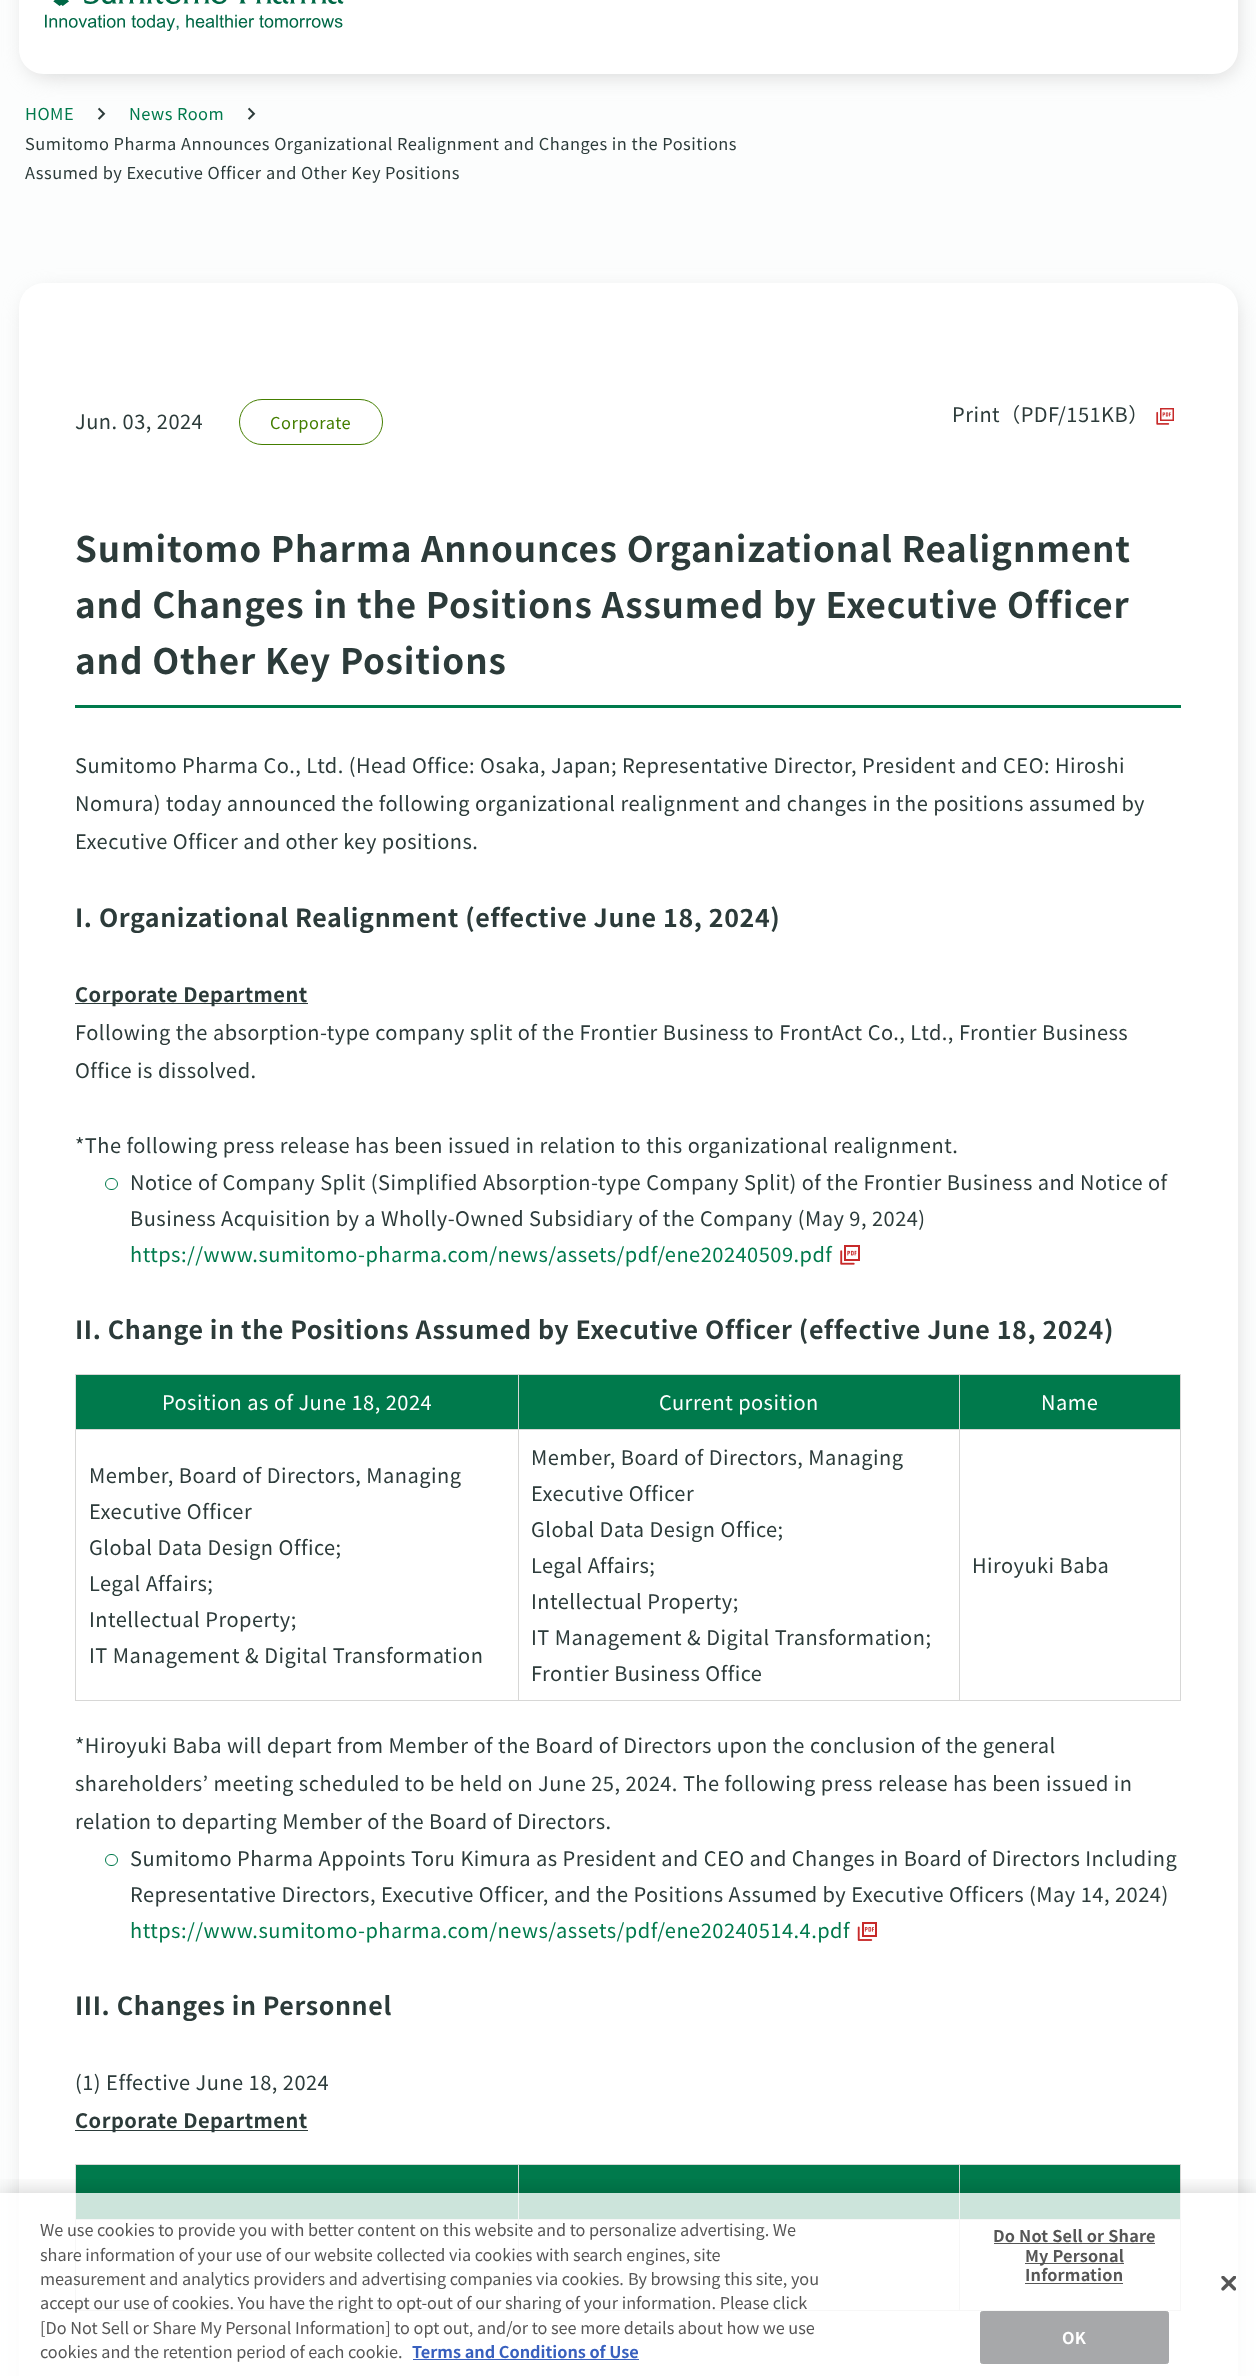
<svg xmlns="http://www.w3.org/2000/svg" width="1256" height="2376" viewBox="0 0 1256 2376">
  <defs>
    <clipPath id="clip1"><rect x="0" y="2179" width="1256" height="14"/></clipPath>
  </defs>
  <rect width="100%" height="100%" fill="rgb(252,253,253)"/>
  <image x="97" y="107" width="9" height="13" href="pic2.png"/>
  <image x="247" y="107" width="9" height="13" href="pic2.png"/>
  <rect x="28" y="-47" width="1206" height="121" rx="19" fill="rgb(209,209,209)" filter="blur(11px)"/>
  <path d="M19-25H1238V49C1238 63 1227 74 1213 74H44C30 74 19 63 19 49Z" fill="rgb(255,255,255)"/>
  <image x="45" y="0" width="299" height="31" href="pic1.png"/>
  <g font-family="Noto Sans JP" font-size="16.4" letter-spacing="0.5" fill="rgb(0,122,76)">
    <text x="25" y="120">HOME</text>
    <text x="129" y="120">News Room</text>
  </g>
  <g font-family="Noto Sans JP" font-size="16.4" letter-spacing="0.5" fill="rgb(44,59,58)">
    <text>
      <tspan x="25" y="150">Sumitomo Pharma Announces Organizational Realignment and Changes in the Positions</tspan>
      <tspan x="25" y="179">Assumed by Executive Officer and Other Key Positions</tspan>
    </text>
  </g>
  <rect x="28" y="295" width="1206" height="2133" rx="19" fill="rgb(209,209,209)" filter="blur(11px)"/>
  <rect x="19" y="283" width="1219" height="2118" rx="25" fill="rgb(255,255,255)"/>
  <text x="75" y="429" font-family="Noto Sans JP" font-size="20" letter-spacing="0.5" fill="rgb(44,59,58)">Jun. 03, 2024</text>
  <rect x="239.5" y="399.5" width="143" height="45" rx="22.5" fill="none" stroke="rgb(68,126,0)"/>
  <text x="270" y="429" font-family="Noto Sans JP" font-size="16.4" letter-spacing="0.5" fill="rgb(68,126,0)">Corporate</text>
  <text x="952" y="422" font-family="Noto Sans JP" font-size="20" letter-spacing="0.5" fill="rgb(44,59,58)">Print（PDF/151KB）</text>
  <image x="1156" y="408" width="18" height="17" href="pic3.png"/>
  <rect x="75" y="705" width="1106" height="3" fill="rgb(0,122,76)"/>
  <g font-family="Noto Sans JP" font-size="35" font-weight="bold" letter-spacing="0.88" fill="rgb(44,59,58)">
    <text>
      <tspan x="75" y="562">Sumitomo Pharma Announces Organizational Realignment</tspan>
      <tspan x="75" y="618">and Changes in the Positions Assumed by Executive Officer</tspan>
      <tspan x="75" y="674">and Other Key Positions</tspan>
    </text>
  </g>
  <g font-family="Noto Sans JP" font-size="20" letter-spacing="0.5" fill="rgb(44,59,58)">
    <text>
      <tspan x="75" y="773">Sumitomo Pharma Co., Ltd. (Head Office: Osaka, Japan; Representative Director, President and CEO: Hiroshi</tspan>
      <tspan x="75" y="811">Nomura) today announced the following organizational realignment and changes in the positions assumed by</tspan>
      <tspan x="75" y="849">Executive Officer and other key positions.</tspan>
    </text>
  </g>
  <text x="75" y="927" font-family="Noto Sans JP" font-size="25" font-weight="bold" letter-spacing="0.62" fill="rgb(44,59,58)">I. Organizational Realignment (effective June 18, 2024)</text>
  <rect x="75" y="1003" width="233" height="1" fill="rgb(44,59,58)"/>
  <text x="75" y="1002" font-family="Noto Sans JP" font-size="20" font-weight="bold" letter-spacing="0.5" fill="rgb(44,59,58)">Corporate Department</text>
  <g font-family="Noto Sans JP" font-size="20" letter-spacing="0.5" fill="rgb(44,59,58)">
    <text>
      <tspan x="75" y="1040">Following the absorption-type company split of the Frontier Business to FrontAct Co., Ltd., Frontier Business</tspan>
      <tspan x="75" y="1078">Office is dissolved.</tspan>
    </text>
    <text x="75" y="1153">*The following press release has been issued in relation to this organizational realignment.</text>
  </g>
  <rect x="105.5" y="1178.5" width="12" height="11" rx="5.5" fill="none" stroke="rgb(0,122,76)"/>
  <g font-family="Noto Sans JP" font-size="20" letter-spacing="0.5" fill="rgb(44,59,58)">
    <text>
      <tspan x="130" y="1190">Notice of Company Split (Simplified Absorption-type Company Split) of the Frontier Business and Notice of</tspan>
      <tspan x="130" y="1226">Business Acquisition by a Wholly-Owned Subsidiary of the Company (May 9, 2024)</tspan>
    </text>
  </g>
  <text x="130" y="1262" font-family="Noto Sans JP" font-size="20" letter-spacing="0.5" fill="rgb(0,122,76)">https://www.sumitomo-pharma.com/news/assets/pdf/ene20240509.pdf</text>
  <image x="840" y="1245" width="20" height="20" href="pic4.png"/>
  <text x="75" y="1339" font-family="Noto Sans JP" font-size="25" font-weight="bold" letter-spacing="0.62" fill="rgb(44,59,58)">II. Change in the Positions Assumed by Executive Officer (effective June 18, 2024)</text>
  <rect x="1180" y="1430" width="1" height="271" fill="rgb(215,215,214)"/>
  <rect x="75" y="1700" width="1106" height="1" fill="rgb(215,215,214)"/>
  <rect x="75" y="1430" width="1" height="271" fill="rgb(215,215,214)"/>
  <rect x="76" y="1375" width="442" height="54" fill="rgb(0,122,76)"/>
  <rect x="75" y="1374" width="1106" height="1" fill="rgb(215,215,214)"/>
  <rect x="959" y="1429" width="222" height="1" fill="rgb(215,215,214)"/>
  <rect x="959" y="1429" width="1" height="272" fill="rgb(215,215,214)"/>
  <rect x="518" y="1429" width="442" height="1" fill="rgb(215,215,214)"/>
  <rect x="518" y="1429" width="1" height="272" fill="rgb(215,215,214)"/>
  <rect x="75" y="1429" width="444" height="1" fill="rgb(215,215,214)"/>
  <rect x="518" y="1374" width="1" height="56" fill="rgb(215,215,214)"/>
  <rect x="75" y="1374" width="1" height="56" fill="rgb(223,223,223)"/>
  <text x="162" y="1410" font-family="Noto Sans JP" font-size="20" letter-spacing="0.5" fill="rgb(255,255,255)">Position as of June 18, 2024</text>
  <rect x="519" y="1375" width="440" height="54" fill="rgb(0,122,76)"/>
  <rect x="959" y="1374" width="1" height="56" fill="rgb(215,215,214)"/>
  <text x="659" y="1410" font-family="Noto Sans JP" font-size="20" letter-spacing="0.5" fill="rgb(255,255,255)">Current position</text>
  <rect x="960" y="1375" width="220" height="54" fill="rgb(0,122,76)"/>
  <rect x="1180" y="1374" width="1" height="56" fill="rgb(215,215,214)"/>
  <text x="1041" y="1410" font-family="Noto Sans JP" font-size="20" letter-spacing="0.5" fill="rgb(255,255,255)">Name</text>
  <g font-family="Noto Sans JP" font-size="20" letter-spacing="0.5" fill="rgb(44,59,58)">
    <text>
      <tspan x="89" y="1483">Member, Board of Directors, Managing</tspan>
      <tspan x="89" y="1519">Executive Officer</tspan>
      <tspan x="89" y="1555">Global Data Design Office;</tspan>
      <tspan x="89" y="1591">Legal Affairs;</tspan>
      <tspan x="89" y="1627">Intellectual Property;</tspan>
      <tspan x="89" y="1663">IT Management &amp; Digital Transformation</tspan>
    </text>
    <text>
      <tspan x="531" y="1465">Member, Board of Directors, Managing</tspan>
      <tspan x="531" y="1501">Executive Officer</tspan>
      <tspan x="531" y="1537">Global Data Design Office;</tspan>
      <tspan x="531" y="1573">Legal Affairs;</tspan>
      <tspan x="531" y="1609">Intellectual Property;</tspan>
      <tspan x="531" y="1645">IT Management &amp; Digital Transformation;</tspan>
      <tspan x="531" y="1681">Frontier Business Office</tspan>
    </text>
    <text x="972" y="1573">Hiroyuki Baba</text>
    <text>
      <tspan x="75" y="1753">*Hiroyuki Baba will depart from Member of the Board of Directors upon the conclusion of the general</tspan>
      <tspan x="75" y="1791">shareholders’ meeting scheduled to be held on June 25, 2024. The following press release has been issued in</tspan>
      <tspan x="75" y="1829">relation to departing Member of the Board of Directors.</tspan>
    </text>
  </g>
  <rect x="105.5" y="1854.5" width="12" height="11" rx="5.5" fill="none" stroke="rgb(0,122,76)"/>
  <g font-family="Noto Sans JP" font-size="20" letter-spacing="0.5" fill="rgb(44,59,58)">
    <text>
      <tspan x="130" y="1866">Sumitomo Pharma Appoints Toru Kimura as President and CEO and Changes in Board of Directors Including</tspan>
      <tspan x="130" y="1902">Representative Directors, Executive Officer, and the Positions Assumed by Executive Officers (May 14, 2024)</tspan>
    </text>
  </g>
  <text x="130" y="1938" font-family="Noto Sans JP" font-size="20" letter-spacing="0.5" fill="rgb(0,122,76)">https://www.sumitomo-pharma.com/news/assets/pdf/ene20240514.4.pdf</text>
  <image x="857" y="1922" width="20" height="19" href="pic5.png"/>
  <text x="75" y="2015" font-family="Noto Sans JP" font-size="25" font-weight="bold" letter-spacing="0.62" fill="rgb(44,59,58)">III. Changes in Personnel</text>
  <text x="75" y="2090" font-family="Noto Sans JP" font-size="20" letter-spacing="0.5" fill="rgb(44,59,58)">(1) Effective June 18, 2024</text>
  <rect x="75" y="2130" width="233" height="1" fill="rgb(44,59,58)"/>
  <text x="75" y="2128" font-family="Noto Sans JP" font-size="20" font-weight="bold" letter-spacing="0.5" fill="rgb(44,59,58)">Corporate Department</text>
  <rect x="1180" y="2220" width="1" height="91" fill="rgb(215,215,214)"/>
  <rect x="75" y="2310" width="1106" height="1" fill="rgb(215,215,214)"/>
  <rect x="75" y="2220" width="1" height="91" fill="rgb(215,215,214)"/>
  <rect x="76" y="2165" width="442" height="54" fill="rgb(0,122,76)"/>
  <rect x="75" y="2164" width="1106" height="1" fill="rgb(215,215,214)"/>
  <rect x="959" y="2219" width="222" height="1" fill="rgb(215,215,214)"/>
  <rect x="959" y="2219" width="1" height="92" fill="rgb(215,215,214)"/>
  <rect x="518" y="2219" width="442" height="1" fill="rgb(215,215,214)"/>
  <rect x="518" y="2219" width="1" height="92" fill="rgb(215,215,214)"/>
  <rect x="75" y="2219" width="444" height="1" fill="rgb(215,215,214)"/>
  <rect x="518" y="2164" width="1" height="56" fill="rgb(215,215,214)"/>
  <rect x="75" y="2164" width="1" height="56" fill="rgb(223,223,223)"/>
  <rect x="960" y="2165" width="220" height="54" fill="rgb(0,122,76)"/>
  <rect x="1180" y="2164" width="1" height="56" fill="rgb(215,215,214)"/>
  <rect x="519" y="2165" width="440" height="54" fill="rgb(0,122,76)"/>
  <rect x="959" y="2164" width="1" height="56" fill="rgb(215,215,214)"/>
  <g clip-path="url(#clip1)">
    <rect x="0" y="2193" width="1256" height="183" fill="rgba(0,0,0,0.2)" filter="blur(11px)"/>
  </g>
  <rect x="0" y="2193" width="1256" height="183" fill="rgba(255,255,255,0.8)"/>
  <g font-family="Noto Sans JP" font-size="16.25" fill="rgb(86,86,86)">
    <text>
      <tspan x="40" y="2236">We use cookies to provide you with better content on this website and to personalize advertising. We</tspan>
      <tspan x="40" y="2261">share information of your use of our website collected via cookies with search engines, site</tspan>
      <tspan x="40" y="2285">measurement and analytics providers and advertising companies via cookies.</tspan>
    </text>
    <text x="628" y="2285">By browsing this site, you</text>
    <text>
      <tspan x="40" y="2309">accept our use of cookies. You have the right to opt-out of our sharing of your information. Please click</tspan>
      <tspan x="40" y="2334">[Do Not Sell or Share My Personal Information] to opt out, and/or to see more details about how we use</tspan>
      <tspan x="40" y="2358">cookies and the retention period of each cookie.</tspan>
    </text>
  </g>
  <text x="412" y="2358" font-family="Noto Sans JP" font-size="16.25" font-weight="bold" fill="rgb(56,96,190)">Terms and Conditions of Use</text>
  <rect x="413" y="2359" width="226" height="1" fill="rgb(56,96,190)"/>
  <text x="993" y="2242" font-family="Noto Sans JP" font-size="16.25" font-weight="bold" letter-spacing="0.2" fill="rgb(86,86,86)">Do Not Sell or Share</text>
  <rect x="994" y="2243" width="161" height="1" fill="rgb(86,86,86)"/>
  <rect x="1025" y="2263" width="99" height="1" fill="rgb(86,86,86)"/>
  <g font-family="Noto Sans JP" font-size="16.25" font-weight="bold" letter-spacing="0.2" fill="rgb(86,86,86)">
    <text>
      <tspan x="1025" y="2262">My Personal</tspan>
      <tspan x="1025" y="2281">Information</tspan>
    </text>
  </g>
  <rect x="1025" y="2283" width="98" height="1" fill="rgb(86,86,86)"/>
  <rect x="980.5" y="2311.5" width="188" height="52" rx="2" fill="rgb(167,168,170)" stroke="rgb(167,168,170)"/>
  <text x="1062" y="2344" font-family="Noto Sans JP" font-size="16.25" font-weight="bold" letter-spacing="0.2" fill="rgb(255,255,255)">OK</text>
  <image x="1221" y="2276" width="15" height="15" href="pic6.png"/>
</svg>
